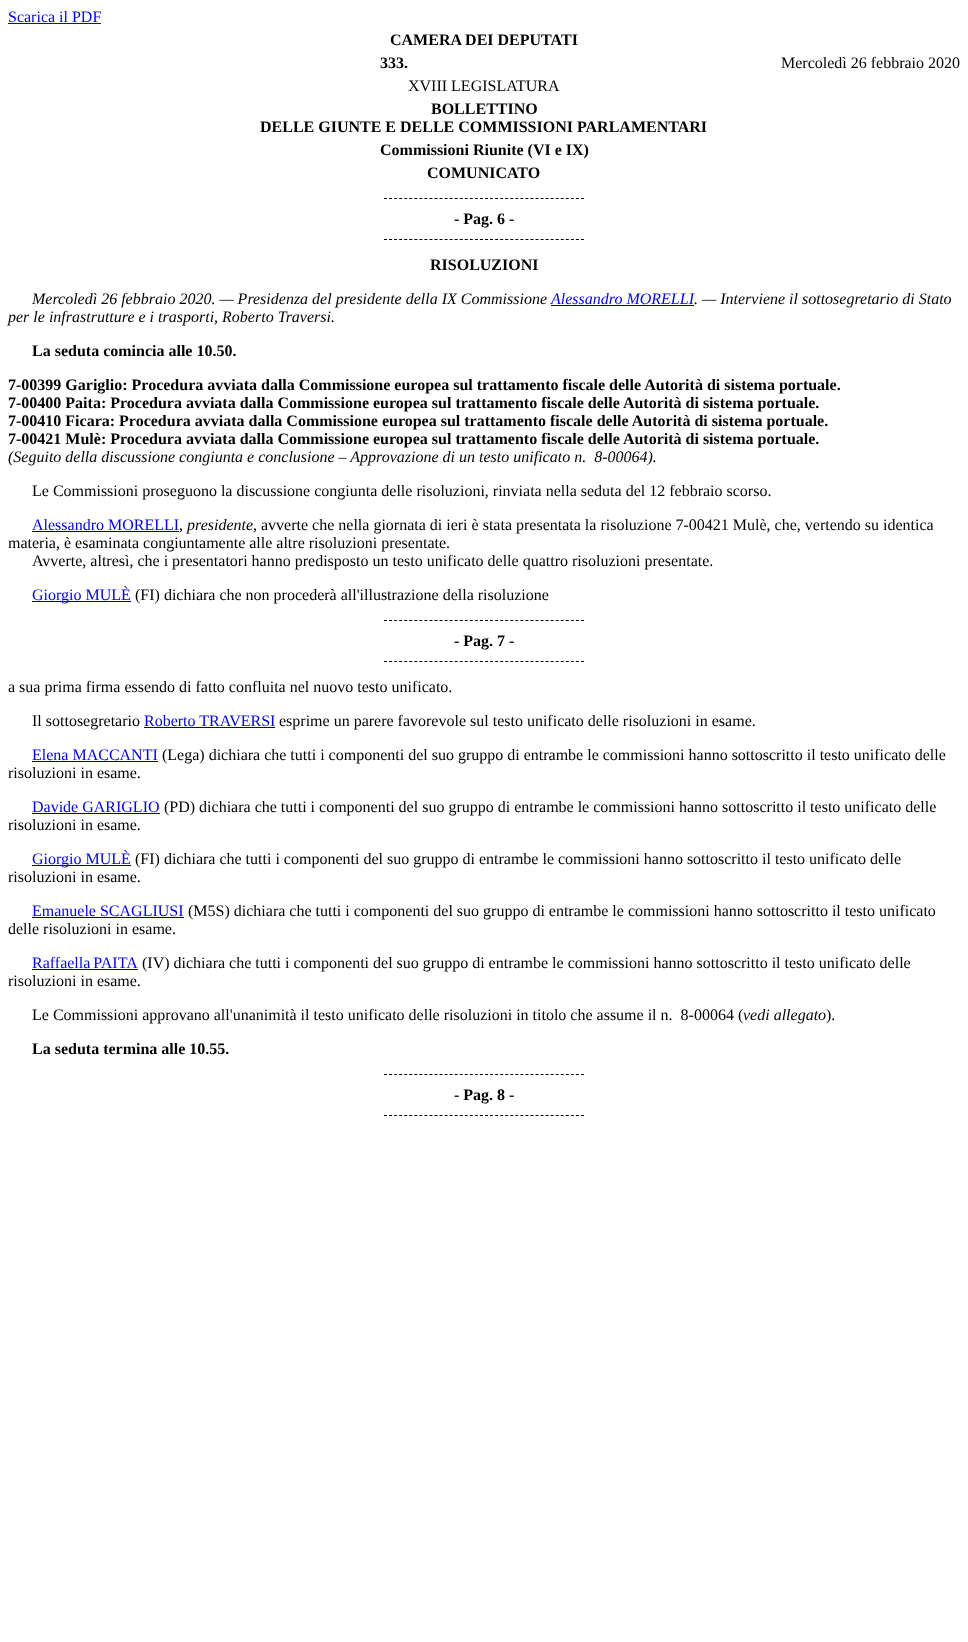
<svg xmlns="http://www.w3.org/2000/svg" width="968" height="1642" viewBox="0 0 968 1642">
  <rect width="100%" height="100%" fill="rgb(255,255,255)"/>
  <text x="8" y="22" font-family="Liberation Serif" font-size="16" fill="rgb(0,0,238)">Scarica il PDF</text>
  <rect x="8" y="23" width="93" height="1" fill="rgb(0,0,238)"/>
  <g font-family="Liberation Serif" font-size="16" font-weight="bold" fill="rgb(0,0,0)">
    <text x="390" y="45">CAMERA DEI DEPUTATI</text>
    <text x="380" y="68">333.</text>
  </g>
  <g font-family="Liberation Serif" font-size="16" fill="rgb(0,0,0)">
    <text x="781" y="68">Mercoledì 26 febbraio 2020</text>
    <text x="408" y="91">XVIII LEGISLATURA</text>
  </g>
  <g font-family="Liberation Serif" font-size="16" font-weight="bold" fill="rgb(0,0,0)">
    <text x="431" y="114">BOLLETTINO</text>
    <text x="260" y="132">DELLE GIUNTE E DELLE COMMISSIONI PARLAMENTARI</text>
    <text x="380" y="155">Commissioni Riunite (VI e IX)</text>
    <text x="427" y="178">COMUNICATO</text>
  </g>
  <path d="M384 198.5H584" fill="none" stroke="rgb(0,0,0)" stroke-dasharray="3 2.05"/>
  <path d="M384 239.5H584" fill="none" stroke="rgb(0,0,0)" stroke-dasharray="3 2.05"/>
  <g font-family="Liberation Serif" font-size="16" font-weight="bold" fill="rgb(0,0,0)">
    <text x="454" y="224">- Pag. 6 -</text>
    <text x="430" y="270">RISOLUZIONI</text>
  </g>
  <text x="32" y="304" font-family="Liberation Serif" font-size="16" font-style="italic" fill="rgb(0,0,0)">Mercoledì 26 febbraio 2020. — Presidenza del presidente della IX Commissione</text>
  <text x="551" y="304" font-family="Liberation Serif" font-size="16" font-style="italic" fill="rgb(0,0,238)">Alessandro MORELLI</text>
  <text x="694" y="304" font-family="Liberation Serif" font-size="16" font-style="italic" fill="rgb(0,0,0)">. — Interviene il sottosegretario di Stato</text>
  <rect x="551" y="305" width="143" height="1" fill="rgb(0,0,238)"/>
  <path d="M551 305.5H693.5" fill="none" stroke="rgb(0,0,0)" stroke-dasharray="1 1"/>
  <text x="8" y="322" font-family="Liberation Serif" font-size="16" font-style="italic" fill="rgb(0,0,0)">per le infrastrutture e i trasporti, Roberto Traversi.</text>
  <g font-family="Liberation Serif" font-size="16" font-weight="bold" fill="rgb(0,0,0)">
    <text x="32" y="356">La seduta comincia alle 10.50.</text>
    <text>
      <tspan x="8" y="390">7-00399 Gariglio: Procedura avviata dalla Commissione europea sul trattamento fiscale delle Autorità di sistema portuale.</tspan>
      <tspan x="8" y="408">7-00400 Paita: Procedura avviata dalla Commissione europea sul trattamento fiscale delle Autorità di sistema portuale.</tspan>
      <tspan x="8" y="426">7-00410 Ficara: Procedura avviata dalla Commissione europea sul trattamento fiscale delle Autorità di sistema portuale.</tspan>
      <tspan x="8" y="444">7-00421 Mulè: Procedura avviata dalla Commissione europea sul trattamento fiscale delle Autorità di sistema portuale.</tspan>
    </text>
  </g>
  <text x="8" y="462" font-family="Liberation Serif" font-size="16" font-style="italic" fill="rgb(0,0,0)">(Seguito della discussione congiunta e conclusione – Approvazione di un testo unificato n. 8-00064).</text>
  <text x="32" y="496" font-family="Liberation Serif" font-size="16" fill="rgb(0,0,0)">Le Commissioni proseguono la discussione congiunta delle risoluzioni, rinviata nella seduta del 12 febbraio scorso.</text>
  <text x="32" y="530" font-family="Liberation Serif" font-size="16" fill="rgb(0,0,238)">Alessandro MORELLI</text>
  <rect x="32" y="531" width="147" height="1" fill="rgb(0,0,238)"/>
  <path d="M32 531.5H179" fill="none" stroke="rgb(0,0,0)" stroke-dasharray="1 1"/>
  <text x="179" y="530" font-family="Liberation Serif" font-size="16" fill="rgb(0,0,0)">,</text>
  <text x="187" y="530" font-family="Liberation Serif" font-size="16" font-style="italic" fill="rgb(0,0,0)">presidente</text>
  <g font-family="Liberation Serif" font-size="16" fill="rgb(0,0,0)">
    <text x="253" y="530">, avverte che nella giornata di ieri è stata presentata la risoluzione 7-00421 Mulè, che, vertendo su identica</text>
    <text x="8" y="548">materia, è esaminata congiuntamente alle altre risoluzioni presentate.</text>
    <text x="32" y="566">Avverte, altresì, che i presentatori hanno predisposto un testo unificato delle quattro risoluzioni presentate.</text>
  </g>
  <rect x="32" y="601" width="99" height="1" fill="rgb(0,0,238)"/>
  <path d="M32 601.5H131" fill="none" stroke="rgb(0,0,0)" stroke-dasharray="1 1"/>
  <text x="32" y="600" font-family="Liberation Serif" font-size="16" fill="rgb(0,0,238)">Giorgio MULÈ</text>
  <text x="135" y="600" font-family="Liberation Serif" font-size="16" fill="rgb(0,0,0)">(FI) dichiara che non procederà all'illustrazione della risoluzione</text>
  <path d="M384 620.5H584" fill="none" stroke="rgb(0,0,0)" stroke-dasharray="3 2.05"/>
  <path d="M384 661.5H584" fill="none" stroke="rgb(0,0,0)" stroke-dasharray="3 2.05"/>
  <text x="454" y="646" font-family="Liberation Serif" font-size="16" font-weight="bold" fill="rgb(0,0,0)">- Pag. 7 -</text>
  <g font-family="Liberation Serif" font-size="16" fill="rgb(0,0,0)">
    <text x="8" y="692">a sua prima firma essendo di fatto confluita nel nuovo testo unificato.</text>
    <text x="32" y="726">Il sottosegretario</text>
  </g>
  <text x="144" y="726" font-family="Liberation Serif" font-size="16" fill="rgb(0,0,238)">Roberto TRAVERSI</text>
  <rect x="144" y="727" width="131" height="1" fill="rgb(0,0,238)"/>
  <path d="M144 727.5H275.5" fill="none" stroke="rgb(0,0,0)" stroke-dasharray="1 1"/>
  <text x="279" y="726" font-family="Liberation Serif" font-size="16" fill="rgb(0,0,0)">esprime un parere favorevole sul testo unificato delle risoluzioni in esame.</text>
  <text x="32" y="760" font-family="Liberation Serif" font-size="16" fill="rgb(0,0,238)">Elena MACCANTI</text>
  <rect x="32" y="761" width="126" height="1" fill="rgb(0,0,238)"/>
  <path d="M32 761.5H158" fill="none" stroke="rgb(0,0,0)" stroke-dasharray="1 1"/>
  <g font-family="Liberation Serif" font-size="16" fill="rgb(0,0,0)">
    <text x="162" y="760">(Lega) dichiara che tutti i componenti del suo gruppo di entrambe le commissioni hanno sottoscritto il testo unificato delle</text>
    <text x="8" y="778">risoluzioni in esame.</text>
  </g>
  <text x="32" y="812" font-family="Liberation Serif" font-size="16" fill="rgb(0,0,238)">Davide GARIGLIO</text>
  <rect x="32" y="813" width="128" height="1" fill="rgb(0,0,238)"/>
  <path d="M32 813.5H159.5" fill="none" stroke="rgb(0,0,0)" stroke-dasharray="1 1"/>
  <g font-family="Liberation Serif" font-size="16" fill="rgb(0,0,0)">
    <text x="164" y="812">(PD) dichiara che tutti i componenti del suo gruppo di entrambe le commissioni hanno sottoscritto il testo unificato delle</text>
    <text x="8" y="830">risoluzioni in esame.</text>
  </g>
  <rect x="32" y="865" width="99" height="1" fill="rgb(0,0,238)"/>
  <path d="M32 865.5H131" fill="none" stroke="rgb(0,0,0)" stroke-dasharray="1 1"/>
  <text x="32" y="864" font-family="Liberation Serif" font-size="16" fill="rgb(0,0,238)">Giorgio MULÈ</text>
  <g font-family="Liberation Serif" font-size="16" fill="rgb(0,0,0)">
    <text x="135" y="864">(FI) dichiara che tutti i componenti del suo gruppo di entrambe le commissioni hanno sottoscritto il testo unificato delle</text>
    <text x="8" y="882">risoluzioni in esame.</text>
  </g>
  <text x="32" y="916" font-family="Liberation Serif" font-size="16" fill="rgb(0,0,238)">Emanuele SCAGLIUSI</text>
  <rect x="32" y="917" width="152" height="1" fill="rgb(0,0,238)"/>
  <path d="M32 917.5H183.5" fill="none" stroke="rgb(0,0,0)" stroke-dasharray="1 1"/>
  <g font-family="Liberation Serif" font-size="16" fill="rgb(0,0,0)">
    <text x="188" y="916">(M5S) dichiara che tutti i componenti del suo gruppo di entrambe le commissioni hanno sottoscritto il testo unificato</text>
    <text x="8" y="934">delle risoluzioni in esame.</text>
  </g>
  <text x="32" y="968" word-spacing="-1" font-family="Liberation Serif" font-size="16" fill="rgb(0,0,238)">Raffaella PAITA</text>
  <rect x="32" y="969" width="106" height="1" fill="rgb(0,0,238)"/>
  <path d="M32 969.5H138" fill="none" stroke="rgb(0,0,0)" stroke-dasharray="1 1"/>
  <g font-family="Liberation Serif" font-size="16" fill="rgb(0,0,0)">
    <text x="142" y="968">(IV) dichiara che tutti i componenti del suo gruppo di entrambe le commissioni hanno sottoscritto il testo unificato delle</text>
    <text x="8" y="986">risoluzioni in esame.</text>
    <text x="32" y="1020">Le Commissioni approvano all'unanimità il testo unificato delle risoluzioni in titolo che assume il n. 8-00064 (</text>
  </g>
  <text x="743" y="1020" font-family="Liberation Serif" font-size="16" font-style="italic" fill="rgb(0,0,0)">vedi allegato</text>
  <text x="826" y="1020" font-family="Liberation Serif" font-size="16" fill="rgb(0,0,0)">).</text>
  <text x="32" y="1054" font-family="Liberation Serif" font-size="16" font-weight="bold" fill="rgb(0,0,0)">La seduta termina alle 10.55.</text>
  <path d="M384 1074.5H584" fill="none" stroke="rgb(0,0,0)" stroke-dasharray="3 2.05"/>
  <path d="M384 1115.5H584" fill="none" stroke="rgb(0,0,0)" stroke-dasharray="3 2.05"/>
  <text x="454" y="1100" font-family="Liberation Serif" font-size="16" font-weight="bold" fill="rgb(0,0,0)">- Pag. 8 -</text>
</svg>
